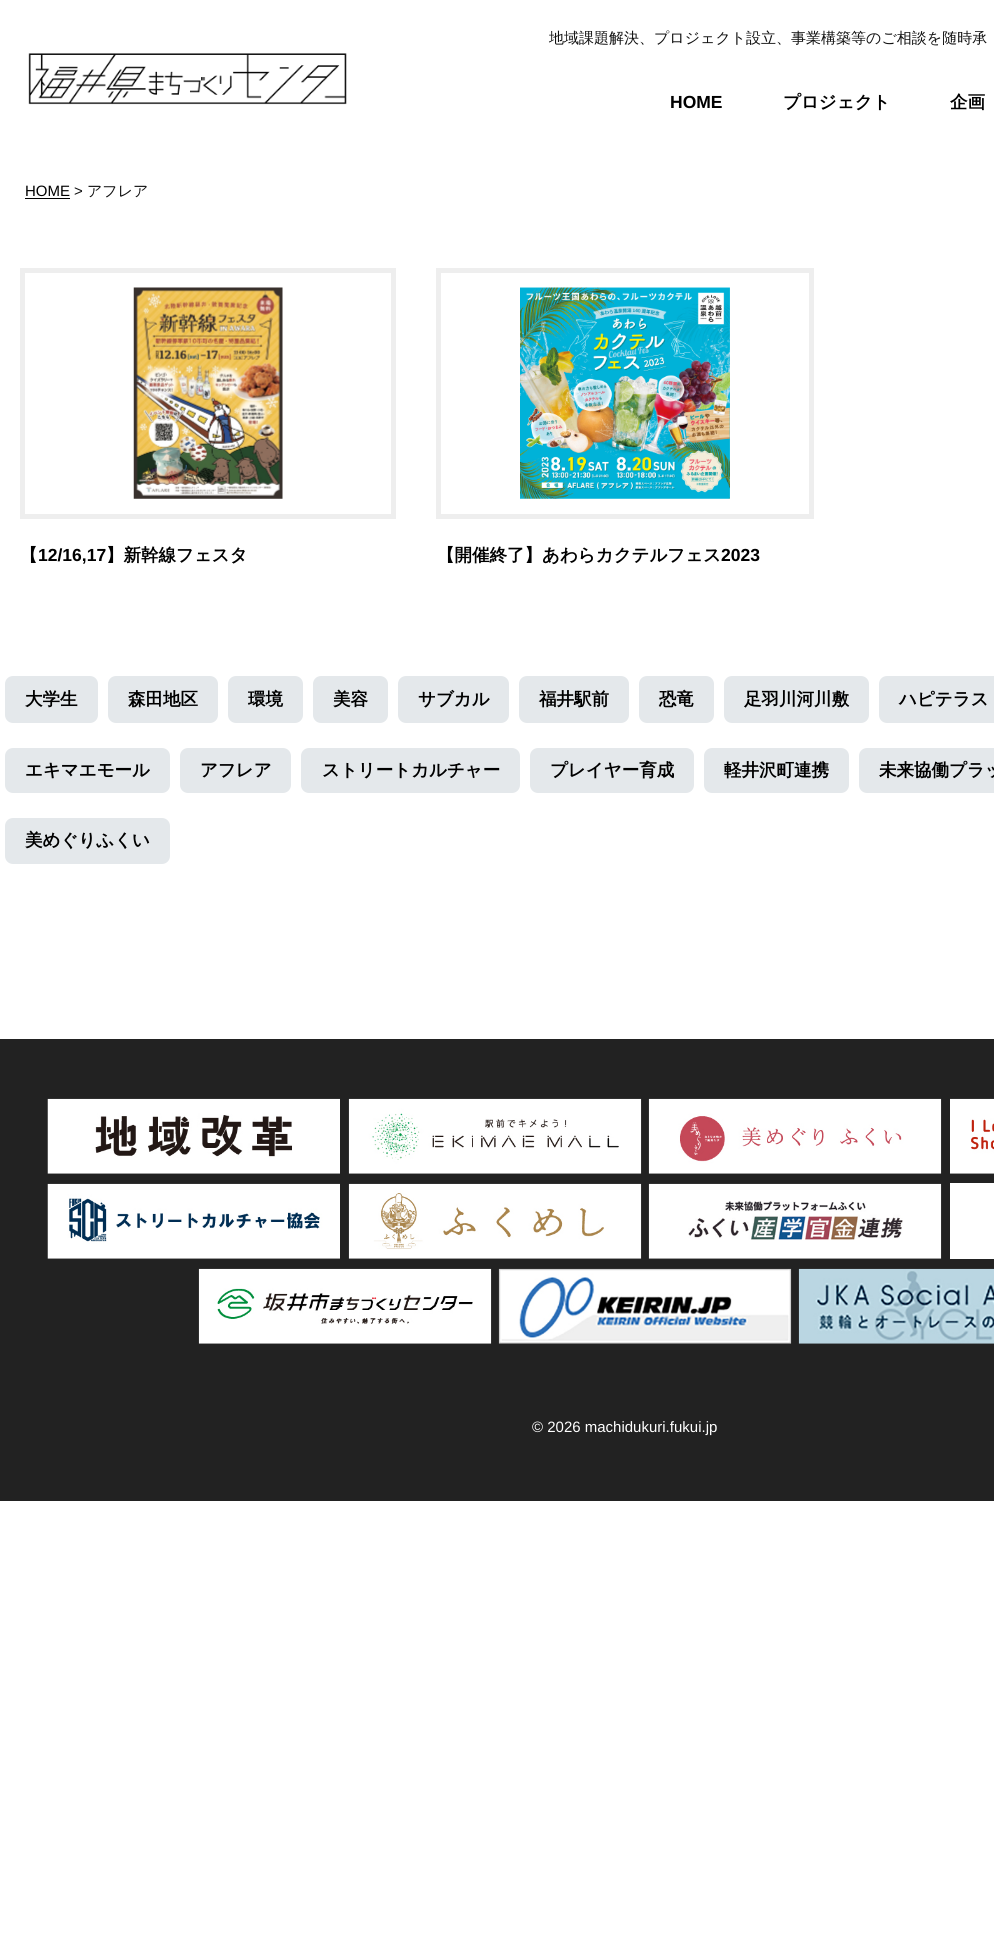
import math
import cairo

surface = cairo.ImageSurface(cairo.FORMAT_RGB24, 994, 1942)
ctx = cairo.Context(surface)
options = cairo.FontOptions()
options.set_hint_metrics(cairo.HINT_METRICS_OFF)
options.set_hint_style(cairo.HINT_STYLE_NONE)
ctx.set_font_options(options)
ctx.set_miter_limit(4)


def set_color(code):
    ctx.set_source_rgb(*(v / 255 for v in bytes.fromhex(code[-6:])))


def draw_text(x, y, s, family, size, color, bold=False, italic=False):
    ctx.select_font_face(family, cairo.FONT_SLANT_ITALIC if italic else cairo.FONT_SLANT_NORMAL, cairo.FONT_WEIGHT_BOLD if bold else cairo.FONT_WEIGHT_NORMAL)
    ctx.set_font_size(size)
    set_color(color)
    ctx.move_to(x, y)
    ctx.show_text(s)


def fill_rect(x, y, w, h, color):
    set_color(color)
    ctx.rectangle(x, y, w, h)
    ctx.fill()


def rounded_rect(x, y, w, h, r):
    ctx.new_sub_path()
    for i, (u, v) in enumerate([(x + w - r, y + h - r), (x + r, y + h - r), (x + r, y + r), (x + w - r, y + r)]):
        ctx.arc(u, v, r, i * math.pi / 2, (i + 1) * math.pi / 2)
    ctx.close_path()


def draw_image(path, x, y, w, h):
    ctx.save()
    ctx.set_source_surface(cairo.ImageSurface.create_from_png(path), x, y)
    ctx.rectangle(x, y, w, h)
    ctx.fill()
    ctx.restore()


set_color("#ffffff")
ctx.paint()
draw_image("assets/img1.png", 28, 53, 319, 52)
draw_text(549, 43, "地域課題解決、プロジェクト設立、事業構築等のご相談を随時承", "WenQuanYi Zen Hei Medium", 15, "#111111")
draw_text(670, 108, "HOME", "Liberation Sans", 17.5, "#000000", bold=True)
draw_text(783, 108, "プロジェクト", "WenQuanYi Zen Hei", 17.5, "#000000", bold=True)
draw_text(950, 108, "企画", "WenQuanYi Zen Hei", 17.5, "#000000", bold=True)
draw_text(25, 196, "HOME", "Liberation Sans", 15, "#000000")
fill_rect(25, 198, 45, 1, "#000000")
draw_text(74, 196, ">", "Liberation Sans", 15, "#111111")
draw_text(87, 196, "アフレア", "WenQuanYi Zen Hei Medium", 15, "#111111")
ctx.rectangle(22.5, 270.5, 371, 246)
set_color("#eeeeee")
ctx.set_line_width(5)
ctx.stroke()
draw_image("assets/img2.png", 133, 287, 150, 212)
draw_text(20, 561, "【", "WenQuanYi Zen Hei", 17.5, "#000000", bold=True)
draw_text(38, 561, "12/16,17", "Liberation Sans", 17.5, "#000000", bold=True)
draw_text(106, 561, "】新幹線フェスタ", "WenQuanYi Zen Hei", 17.5, "#000000", bold=True)
ctx.rectangle(438.5, 270.5, 373, 246)
set_color("#eeeeee")
ctx.stroke()
draw_image("assets/img3.png", 520, 287, 210, 212)
draw_text(437, 561, "【開催終了】あわらカクテルフェス", "WenQuanYi Zen Hei", 17.5, "#000000", bold=True)
draw_text(721, 561, "2023", "Liberation Sans", 17.5, "#000000", bold=True)
set_color("#e4e8eb")
rounded_rect(5, 676, 93, 47, 8)
ctx.fill()
draw_text(25, 705, "大学生", "WenQuanYi Zen Hei", 17.5, "#000000", bold=True)
set_color("#e4e8eb")
rounded_rect(108, 676, 110, 47, 8)
ctx.fill()
draw_text(128, 705, "森田地区", "WenQuanYi Zen Hei", 17.5, "#000000", bold=True)
set_color("#e4e8eb")
rounded_rect(228, 676, 75, 47, 8)
ctx.fill()
draw_text(248, 705, "環境", "WenQuanYi Zen Hei", 17.5, "#000000", bold=True)
set_color("#e4e8eb")
rounded_rect(313, 676, 75, 47, 8)
ctx.fill()
draw_text(333, 705, "美容", "WenQuanYi Zen Hei", 17.5, "#000000", bold=True)
set_color("#e4e8eb")
rounded_rect(398, 676, 111, 47, 8)
ctx.fill()
draw_text(418, 705, "サブカル", "WenQuanYi Zen Hei", 17.5, "#000000", bold=True)
set_color("#e4e8eb")
rounded_rect(519, 676, 110, 47, 8)
ctx.fill()
draw_text(539, 705, "福井駅前", "WenQuanYi Zen Hei", 17.5, "#000000", bold=True)
set_color("#e4e8eb")
rounded_rect(639, 676, 75, 47, 8)
ctx.fill()
draw_text(659, 705, "恐竜", "WenQuanYi Zen Hei", 17.5, "#000000", bold=True)
set_color("#e4e8eb")
rounded_rect(724, 676, 145, 47, 8)
ctx.fill()
draw_text(744, 705, "足羽川河川敷", "WenQuanYi Zen Hei", 17.5, "#000000", bold=True)
set_color("#e4e8eb")
rounded_rect(879, 676, 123, 47, 8)
ctx.fill()
draw_text(899, 705, "ハピテラス", "WenQuanYi Zen Hei", 17.5, "#000000", bold=True)
set_color("#e4e8eb")
rounded_rect(5, 748, 165, 45, 8)
ctx.fill()
draw_text(25, 776, "エキマエモール", "WenQuanYi Zen Hei", 17.5, "#000000", bold=True)
set_color("#e4e8eb")
rounded_rect(180, 748, 111, 45, 8)
ctx.fill()
draw_text(200, 776, "アフレア", "WenQuanYi Zen Hei", 17.5, "#000000", bold=True)
set_color("#e4e8eb")
rounded_rect(301, 748, 219, 45, 8)
ctx.fill()
draw_text(322, 776, "ストリートカルチャー", "WenQuanYi Zen Hei", 17.5, "#000000", bold=True)
set_color("#e4e8eb")
rounded_rect(530, 748, 164, 45, 8)
ctx.fill()
draw_text(550, 776, "プレイヤー育成", "WenQuanYi Zen Hei", 17.5, "#000000", bold=True)
set_color("#e4e8eb")
rounded_rect(704, 748, 145, 45, 8)
ctx.fill()
draw_text(724, 776, "軽井沢町連携", "WenQuanYi Zen Hei", 17.5, "#000000", bold=True)
set_color("#e4e8eb")
rounded_rect(859, 748, 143, 45, 8)
ctx.fill()
draw_text(879, 776, "未来協働プラッ", "WenQuanYi Zen Hei", 17.5, "#000000", bold=True)
set_color("#e4e8eb")
rounded_rect(5, 818, 165, 46, 8)
ctx.fill()
draw_text(25, 846, "美めぐりふくい", "WenQuanYi Zen Hei", 17.5, "#000000", bold=True)
fill_rect(0, 1039, 994, 462, "#222222")
draw_image("assets/img4.png", 47, 1098, 293, 76)
draw_image("assets/img5.png", 348, 1098, 294, 76)
draw_image("assets/img6.png", 648, 1098, 294, 76)
draw_image("assets/img7.png", 950, 1098, 44, 76)
draw_image("assets/img8.png", 47, 1183, 293, 76)
draw_image("assets/img9.png", 348, 1183, 294, 76)
draw_image("assets/img10.png", 648, 1183, 294, 76)
fill_rect(950, 1183, 44, 76, "#ffffff")
draw_image("assets/img11.png", 198, 1268, 294, 76)
draw_image("assets/img12.png", 498, 1268, 294, 76)
draw_image("assets/img13.png", 798, 1268, 196, 76)
draw_text(532, 1432, "© 2026 machidukuri.fukui.jp", "Liberation Sans", 15, "#ffffff")
surface.write_to_png("output.png")
